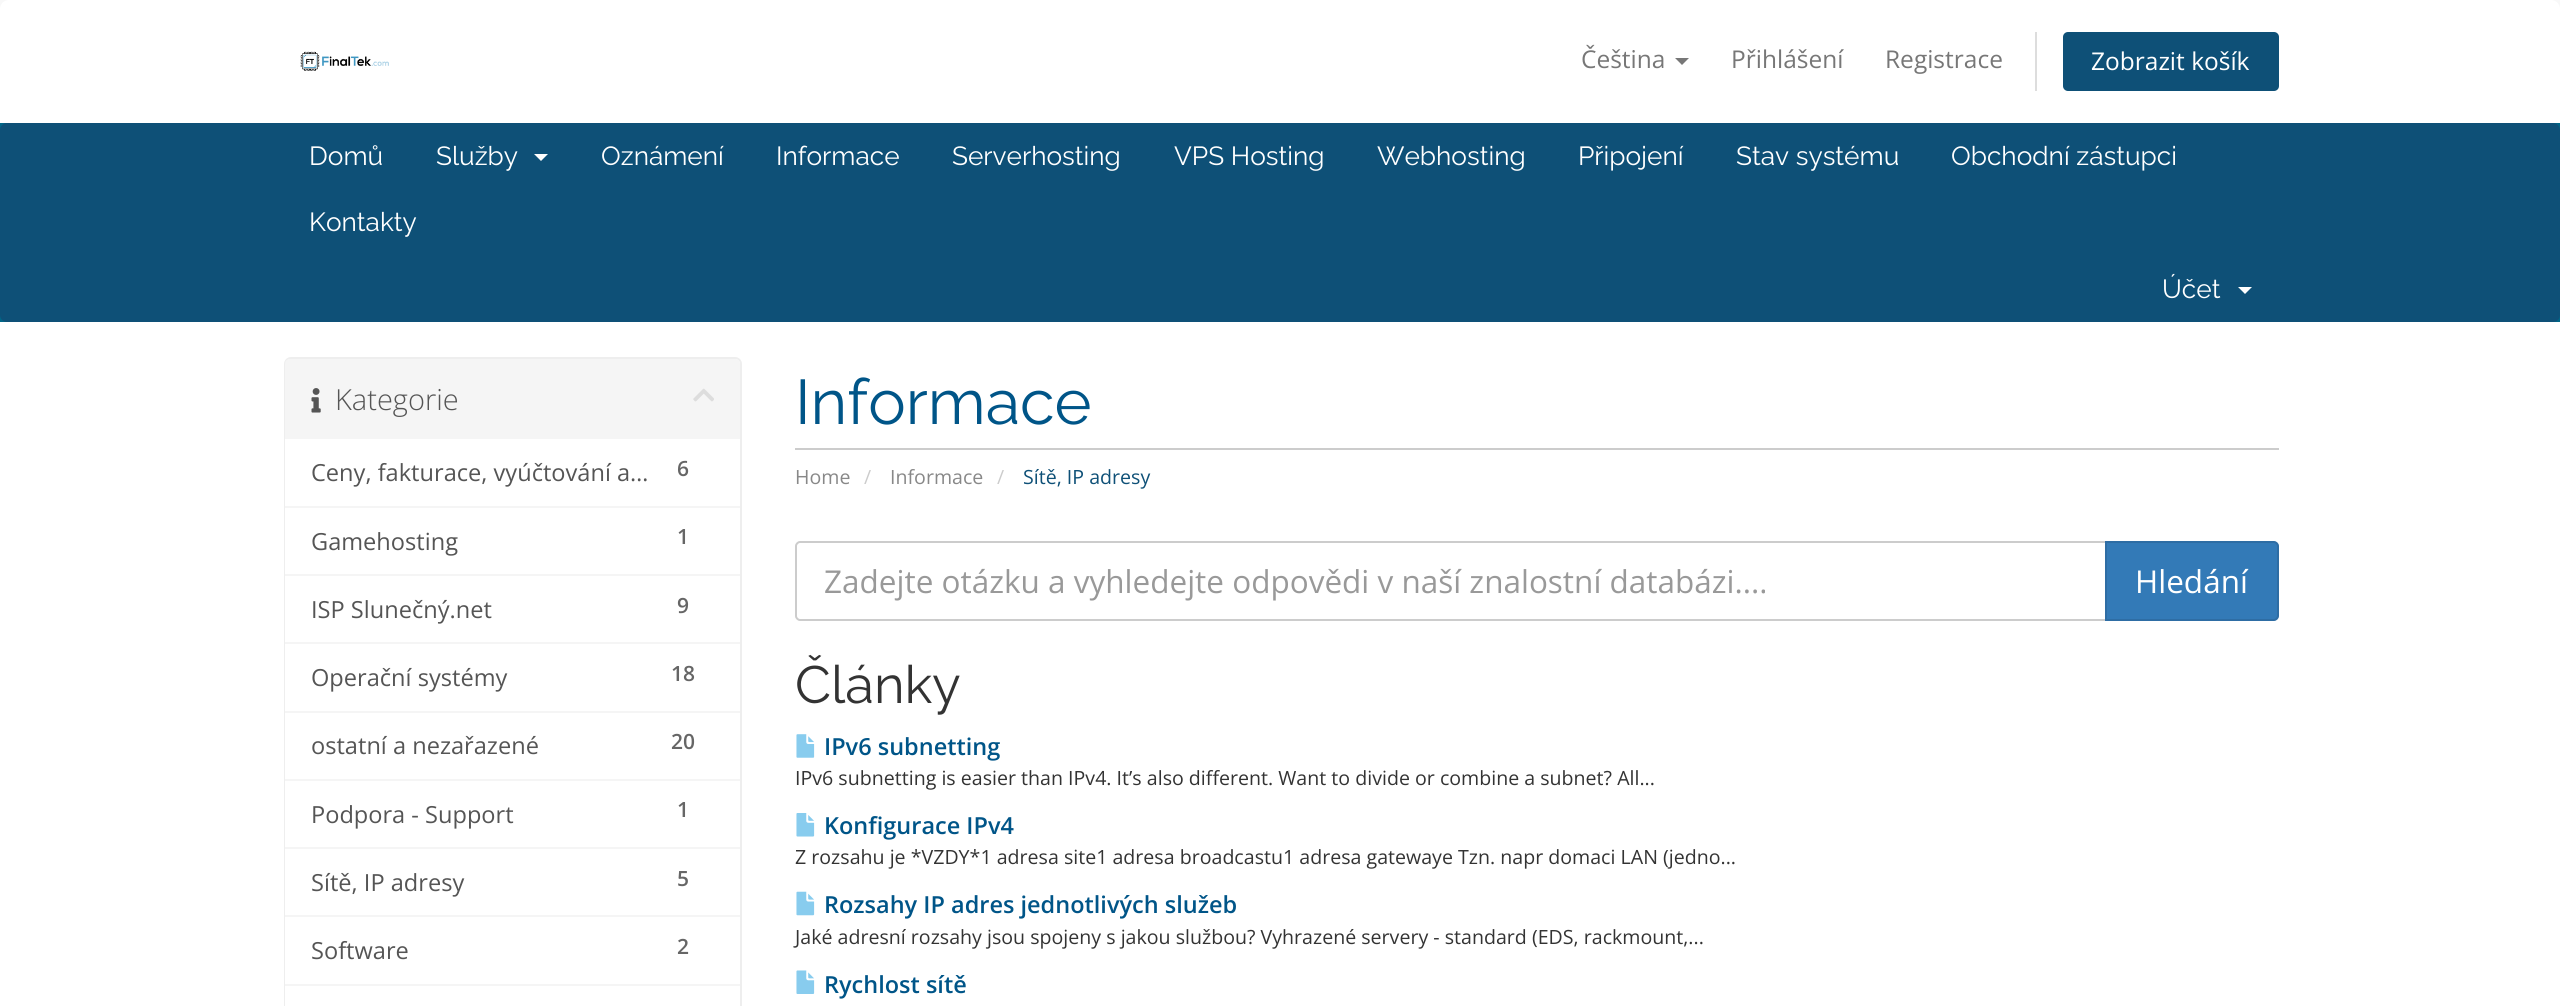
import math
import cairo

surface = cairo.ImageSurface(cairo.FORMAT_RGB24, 2560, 1006)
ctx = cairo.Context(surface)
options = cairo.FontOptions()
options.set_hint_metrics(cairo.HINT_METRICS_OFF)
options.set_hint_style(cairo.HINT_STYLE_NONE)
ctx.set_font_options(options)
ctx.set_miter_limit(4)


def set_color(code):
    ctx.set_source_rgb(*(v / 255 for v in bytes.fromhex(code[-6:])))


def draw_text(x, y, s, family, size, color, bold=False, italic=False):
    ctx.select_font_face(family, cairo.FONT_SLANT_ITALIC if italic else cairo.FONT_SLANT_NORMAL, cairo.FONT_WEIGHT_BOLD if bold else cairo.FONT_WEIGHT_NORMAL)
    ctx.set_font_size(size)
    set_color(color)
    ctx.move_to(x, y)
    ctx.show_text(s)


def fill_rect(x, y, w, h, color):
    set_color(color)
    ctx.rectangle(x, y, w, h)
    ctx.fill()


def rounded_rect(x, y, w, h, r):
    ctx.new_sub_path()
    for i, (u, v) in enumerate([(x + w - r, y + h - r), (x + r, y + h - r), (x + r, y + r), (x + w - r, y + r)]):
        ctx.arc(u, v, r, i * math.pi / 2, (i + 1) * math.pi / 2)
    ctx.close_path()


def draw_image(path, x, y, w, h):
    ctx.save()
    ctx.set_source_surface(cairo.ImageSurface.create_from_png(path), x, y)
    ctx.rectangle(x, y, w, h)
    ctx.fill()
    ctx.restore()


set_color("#f8f8f8")
ctx.paint()
set_color("#ffffff")
ctx.new_path()
ctx.move_to(9, 0)
ctx.line_to(2551, 0)
ctx.curve_to(2556, 0, 2560, 4, 2560, 9)
ctx.line_to(2560, 123)
ctx.line_to(0, 123)
ctx.line_to(0, 9)
ctx.curve_to(0, 4, 4, 0, 9, 0)
ctx.close_path()
ctx.fill()
draw_image("assets/img1.png", 300, 51, 89, 20)
draw_text(1581, 68, "Čeština", "Open Sans", 24.5, "#777777")
ctx.new_path()
ctx.move_to(1675, 58)
ctx.line_to(1689, 58)
ctx.line_to(1682, 65)
ctx.close_path()
ctx.fill()
draw_text(1731, 68, "Přihlášení", "Open Sans", 24.5, "#777777")
draw_text(1885, 68, "Registrace", "Open Sans", 24.5, "#777777")
fill_rect(2035, 32, 2, 59, "#dddddd")
set_color("#0e5077")
rounded_rect(2063, 32, 216, 59, 5)
ctx.fill()
draw_text(2091, 70, "Zobrazit košík", "Open Sans", 24.5, "#ffffff")
fill_rect(0, 123, 2560, 199, "#006687")
set_color("#0e5077")
rounded_rect(0, 123, 2560, 199, 7)
ctx.fill()
draw_text(309, 165, "Domů", "Raleway", 26.25, "#ffffff")
draw_text(436, 165, "Služby", "Raleway", 26.25, "#ffffff")
ctx.new_path()
ctx.move_to(534, 154)
ctx.line_to(548, 154)
ctx.line_to(541, 161)
ctx.close_path()
ctx.fill()
draw_text(601, 165, "Oznámení", "Raleway", 26.25, "#ffffff")
draw_text(776, 165, "Informace", "Raleway", 26.25, "#ffffff")
draw_text(952, 165, "Serverhosting", "Raleway", 26.25, "#ffffff")
draw_text(1174, 165, "VPS Hosting", "Raleway", 26.25, "#ffffff")
draw_text(1377, 165, "Webhosting", "Raleway", 26.25, "#ffffff")
draw_text(1578, 165, "Připojení", "Raleway", 26.25, "#ffffff")
draw_text(1736, 165, "Stav systému", "Raleway", 26.25, "#ffffff")
draw_text(1951, 165, "Obchodní zástupci", "Raleway", 26.25, "#ffffff")
draw_text(309, 231, "Kontakty", "Raleway", 26.25, "#ffffff")
draw_text(2162, 298, "Účet", "Raleway", 26.25, "#ffffff")
ctx.new_path()
ctx.move_to(2238, 287)
ctx.line_to(2252, 287)
ctx.line_to(2245, 294)
ctx.close_path()
ctx.fill()
fill_rect(0, 322, 2560, 684, "#ffffff")
rounded_rect(285, 358, 456, 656, 6)
set_color("#eeeeee")
ctx.stroke()
set_color("#f5f5f5")
ctx.new_path()
ctx.move_to(290, 359)
ctx.line_to(735, 359)
ctx.curve_to(738, 359, 740, 361, 740, 364)
ctx.line_to(740, 439)
ctx.line_to(285, 439)
ctx.line_to(285, 364)
ctx.curve_to(285, 361, 287, 359, 290, 359)
ctx.close_path()
ctx.fill()
draw_image("assets/img2.png", 311, 388, 10, 25)
draw_text(335, 410, "Kategorie", "Open Sans Light", 29, "#555555")
draw_image("assets/img3.png", 693, 388, 21, 14)
fill_rect(285, 439, 1, 67, "#ffffff")
fill_rect(285, 506, 455, 2, "#f5f5f5")
draw_text(311, 481, "Ceny, fakturace, vyúčtování a…", "Open Sans", 23.6, "#555555")
draw_text(677, 476, "6", "Open Sans SemiBold", 21, "#666666")
fill_rect(285, 508, 1, 66, "#ffffff")
fill_rect(285, 574, 455, 2, "#f5f5f5")
draw_text(311, 550, "Gamehosting", "Open Sans", 23.6, "#555555")
draw_text(677, 544, "1", "Open Sans SemiBold", 21, "#666666")
fill_rect(285, 576, 1, 66, "#ffffff")
fill_rect(285, 642, 455, 2, "#f5f5f5")
draw_text(311, 618, "ISP Slunečný.net", "Open Sans", 23.6, "#555555")
draw_text(677, 613, "9", "Open Sans SemiBold", 21, "#666666")
fill_rect(285, 644, 1, 67, "#ffffff")
draw_text(311, 686, "Operační systémy", "Open Sans", 23.6, "#555555")
draw_text(671, 681, "18", "Open Sans SemiBold", 21, "#666666")
fill_rect(285, 713, 1, 66, "#ffffff")
fill_rect(285, 711, 455, 2, "#f5f5f5")
fill_rect(285, 779, 455, 2, "#f5f5f5")
draw_text(311, 754, "ostatní a nezařazené", "Open Sans", 23.6, "#555555")
draw_text(671, 749, "20", "Open Sans SemiBold", 21, "#666666")
fill_rect(285, 781, 1, 66, "#ffffff")
fill_rect(285, 847, 455, 2, "#f5f5f5")
draw_text(311, 823, "Podpora - Support", "Open Sans", 23.6, "#555555")
draw_text(677, 817, "1", "Open Sans SemiBold", 21, "#666666")
fill_rect(285, 849, 1, 66, "#ffffff")
fill_rect(285, 915, 455, 2, "#f5f5f5")
ctx.save()
ctx.rectangle(312, 861, 339, 42)
ctx.clip()
draw_text(311, 891, "Sítě, IP adresy", "Open Sans", 23.6, "#555555")
ctx.restore()
draw_text(677, 886, "5", "Open Sans SemiBold", 21, "#666666")
fill_rect(285, 917, 1, 67, "#ffffff")
ctx.save()
ctx.rectangle(312, 929, 339, 42)
ctx.clip()
draw_text(311, 959, "Software", "Open Sans", 23.6, "#555555")
ctx.restore()
draw_text(677, 954, "2", "Open Sans SemiBold", 21, "#666666")
fill_rect(285, 986, 1, 20, "#ffffff")
fill_rect(285, 984, 455, 2, "#f5f5f5")
fill_rect(795, 448, 1484, 2, "#cccccc")
draw_text(795, 424, "Informace", "Raleway", 63, "#005588")
draw_text(795, 484, "Home", "Open Sans", 19.6, "#888888")
draw_text(864, 484, "/", "Open Sans", 19.6, "#cccccc")
draw_text(890, 484, "Informace", "Open Sans", 19.6, "#888888")
draw_text(997, 484, "/", "Open Sans", 19.6, "#cccccc")
draw_text(1023, 484, "Sítě, IP adresy", "Open Sans", 19.6, "#0e5077")
ctx.new_path()
ctx.move_to(800, 542)
ctx.line_to(2106, 542)
ctx.line_to(2106, 620)
ctx.line_to(800, 620)
ctx.curve_to(798, 620, 796, 618, 796, 616)
ctx.line_to(796, 546)
ctx.curve_to(796, 544, 798, 542, 800, 542)
ctx.close_path()
set_color("#cccccc")
ctx.stroke()
draw_text(824, 593, "Zadejte otázku a vyhledejte odpovědi v naší znalostní databázi....", "Open Sans", 31.5, "#999999")
set_color("#337ab7")
ctx.new_path()
ctx.move_to(2106, 542)
ctx.line_to(2274, 542)
ctx.curve_to(2276, 542, 2278, 544, 2278, 546)
ctx.line_to(2278, 616)
ctx.curve_to(2278, 618, 2276, 620, 2274, 620)
ctx.line_to(2106, 620)
ctx.close_path()
ctx.fill_preserve()
set_color("#2e6da4")
ctx.stroke()
draw_text(2135, 593, "Hledání", "Open Sans", 31.5, "#ffffff")
draw_text(795, 703, "Články", "Raleway", 52.5, "#333333")
draw_image("assets/img4.png", 796, 734, 19, 24)
draw_text(824, 755, "IPv6 subnetting", "Open Sans SemiBold", 23.5, "#005588")
draw_text(795, 785, "IPv6 subnetting is easier than IPv4. It’s also different. Want to divide or combine a subnet? All...", "Open Sans", 19.6, "#333333")
draw_image("assets/img5.png", 796, 813, 19, 24)
draw_text(824, 834, "Konfigurace IPv4", "Open Sans SemiBold", 23.5, "#005588")
draw_text(795, 864, "Z rozsahu je *VZDY*1 adresa site1 adresa broadcastu1 adresa gatewaye Tzn. napr domaci LAN (jedno...", "Open Sans", 19.6, "#333333")
draw_image("assets/img6.png", 796, 891, 19, 25)
draw_text(824, 913, "Rozsahy IP adres jednotlivých služeb", "Open Sans SemiBold", 23.5, "#005588")
draw_text(795, 944, "Jaké adresní rozsahy jsou spojeny s jakou službou? Vyhrazené servery - standard (EDS, rackmount,...", "Open Sans", 19.6, "#333333")
draw_image("assets/img7.png", 796, 970, 19, 24)
draw_text(824, 993, "Rychlost sítě", "Open Sans SemiBold", 23.5, "#005588")
surface.write_to_png("output.png")
